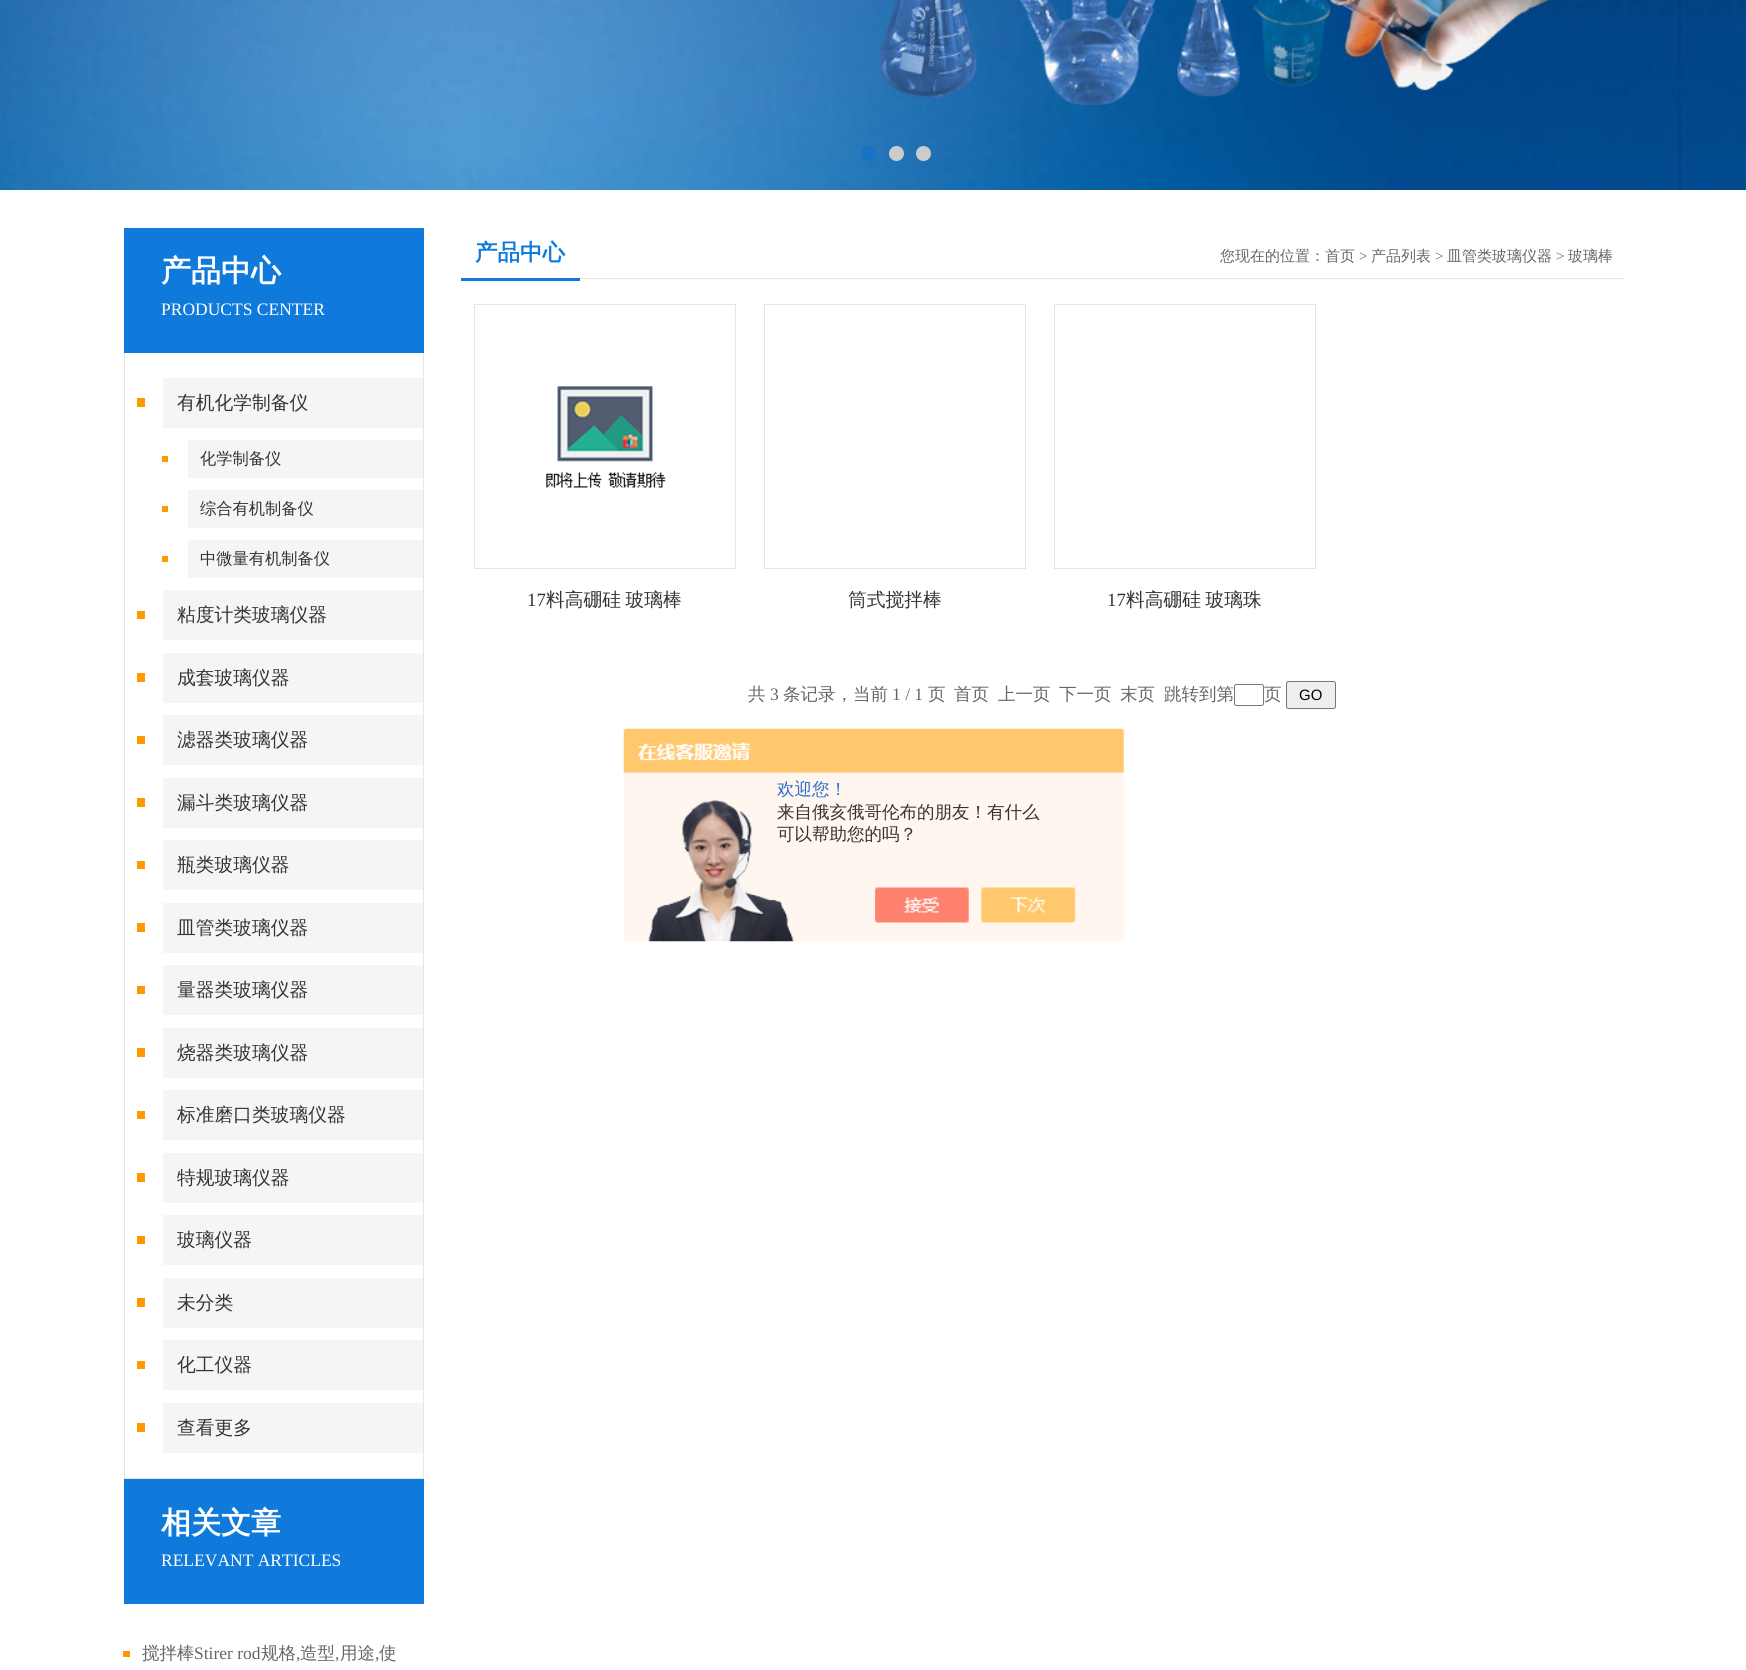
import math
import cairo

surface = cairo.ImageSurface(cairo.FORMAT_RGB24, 1746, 1670)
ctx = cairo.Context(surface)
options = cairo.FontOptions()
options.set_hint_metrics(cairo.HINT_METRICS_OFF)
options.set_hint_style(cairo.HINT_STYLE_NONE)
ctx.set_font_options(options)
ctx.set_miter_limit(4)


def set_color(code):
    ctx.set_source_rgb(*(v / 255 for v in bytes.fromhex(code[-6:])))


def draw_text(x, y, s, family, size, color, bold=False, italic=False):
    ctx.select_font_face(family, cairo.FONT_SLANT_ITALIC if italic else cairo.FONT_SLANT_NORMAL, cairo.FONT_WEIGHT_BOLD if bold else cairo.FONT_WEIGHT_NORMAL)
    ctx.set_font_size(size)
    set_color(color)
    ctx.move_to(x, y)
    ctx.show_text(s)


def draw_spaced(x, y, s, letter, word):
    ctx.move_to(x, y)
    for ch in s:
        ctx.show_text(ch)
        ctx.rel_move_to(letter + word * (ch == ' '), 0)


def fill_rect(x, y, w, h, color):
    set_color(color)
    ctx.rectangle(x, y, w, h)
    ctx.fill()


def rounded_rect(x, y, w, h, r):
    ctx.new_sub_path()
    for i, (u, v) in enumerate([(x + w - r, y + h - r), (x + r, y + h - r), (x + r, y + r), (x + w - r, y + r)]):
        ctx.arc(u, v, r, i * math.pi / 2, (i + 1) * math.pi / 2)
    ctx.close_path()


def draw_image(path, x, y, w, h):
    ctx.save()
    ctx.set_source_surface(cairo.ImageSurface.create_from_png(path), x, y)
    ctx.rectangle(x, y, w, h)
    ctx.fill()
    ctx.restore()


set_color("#ffffff")
ctx.paint()
draw_image("assets/img1.png", 0, 0, 1746, 190)
set_color("#1773c6")
ctx.arc(868.5, 153.5, 7.5, 0, 2 * math.pi)
ctx.fill()
set_color("#cccccc")
ctx.arc(896.5, 153.5, 7.5, 0, 2 * math.pi)
ctx.fill()
ctx.arc(923.5, 153.5, 7.5, 0, 2 * math.pi)
ctx.fill()
fill_rect(124, 228, 300, 125, "#0f7adb")
draw_text(161, 281, "产品中心", "WenQuanYi Zen Hei", 30, "#ffffff", bold=True)
draw_text(161, 315, "PRODUCTS CENTER", "Liberation Serif", 17.5, "#ffffff")
fill_rect(423, 353, 1, 1126, "#e5e5e5")
fill_rect(124, 1478, 300, 1, "#e5e5e5")
fill_rect(124, 353, 1, 1126, "#e5e5e5")
fill_rect(137, 398, 8, 9, "#ff9900")
fill_rect(163, 378, 260, 50, "#f5f5f5")
draw_text(177, 409, "有机化学制备仪", "WenQuanYi Zen Hei Medium", 18.75, "#333333")
fill_rect(162, 456, 6, 6, "#ff9900")
fill_rect(188, 440, 235, 38, "#f5f5f5")
draw_text(200, 464, "化学制备仪", "WenQuanYi Zen Hei Medium", 16.25, "#333333")
fill_rect(162, 506, 6, 6, "#ff9900")
fill_rect(188, 490, 235, 38, "#f5f5f5")
draw_text(200, 514, "综合有机制备仪", "WenQuanYi Zen Hei Medium", 16.25, "#333333")
fill_rect(162, 556, 6, 6, "#ff9900")
fill_rect(188, 540, 235, 38, "#f5f5f5")
draw_text(200, 564, "中微量有机制备仪", "WenQuanYi Zen Hei Medium", 16.25, "#333333")
fill_rect(137, 611, 8, 8, "#ff9900")
fill_rect(163, 590, 260, 50, "#f5f5f5")
draw_text(177, 621, "粘度计类玻璃仪器", "WenQuanYi Zen Hei Medium", 18.75, "#333333")
fill_rect(137, 673, 8, 9, "#ff9900")
fill_rect(163, 653, 260, 50, "#f5f5f5")
draw_text(177, 684, "成套玻璃仪器", "WenQuanYi Zen Hei Medium", 18.75, "#333333")
fill_rect(137, 736, 8, 8, "#ff9900")
fill_rect(163, 715, 260, 50, "#f5f5f5")
draw_text(177, 746, "滤器类玻璃仪器", "WenQuanYi Zen Hei Medium", 18.75, "#333333")
fill_rect(137, 798, 8, 9, "#ff9900")
fill_rect(163, 778, 260, 50, "#f5f5f5")
draw_text(177, 809, "漏斗类玻璃仪器", "WenQuanYi Zen Hei Medium", 18.75, "#333333")
fill_rect(137, 861, 8, 8, "#ff9900")
fill_rect(163, 840, 260, 50, "#f5f5f5")
draw_text(177, 871, "瓶类玻璃仪器", "WenQuanYi Zen Hei Medium", 18.75, "#333333")
fill_rect(137, 923, 8, 9, "#ff9900")
fill_rect(163, 903, 260, 50, "#f5f5f5")
draw_text(177, 934, "皿管类玻璃仪器", "WenQuanYi Zen Hei Medium", 18.75, "#333333")
fill_rect(137, 986, 8, 8, "#ff9900")
fill_rect(163, 965, 260, 50, "#f5f5f5")
draw_text(177, 996, "量器类玻璃仪器", "WenQuanYi Zen Hei Medium", 18.75, "#333333")
fill_rect(137, 1048, 8, 9, "#ff9900")
fill_rect(163, 1028, 260, 50, "#f5f5f5")
draw_text(177, 1059, "烧器类玻璃仪器", "WenQuanYi Zen Hei Medium", 18.75, "#333333")
fill_rect(137, 1111, 8, 8, "#ff9900")
fill_rect(163, 1090, 260, 50, "#f5f5f5")
draw_text(177, 1121, "标准磨口类玻璃仪器", "WenQuanYi Zen Hei Medium", 18.75, "#333333")
fill_rect(137, 1173, 8, 9, "#ff9900")
fill_rect(163, 1153, 260, 50, "#f5f5f5")
draw_text(177, 1184, "特规玻璃仪器", "WenQuanYi Zen Hei Medium", 18.75, "#333333")
fill_rect(137, 1236, 8, 8, "#ff9900")
fill_rect(163, 1215, 260, 50, "#f5f5f5")
draw_text(177, 1246, "玻璃仪器", "WenQuanYi Zen Hei Medium", 18.75, "#333333")
fill_rect(137, 1298, 8, 9, "#ff9900")
fill_rect(163, 1278, 260, 50, "#f5f5f5")
draw_text(177, 1309, "未分类", "WenQuanYi Zen Hei Medium", 18.75, "#333333")
fill_rect(137, 1361, 8, 8, "#ff9900")
fill_rect(163, 1340, 260, 50, "#f5f5f5")
draw_text(177, 1371, "化工仪器", "WenQuanYi Zen Hei Medium", 18.75, "#333333")
fill_rect(137, 1423, 8, 9, "#ff9900")
fill_rect(163, 1403, 260, 50, "#f5f5f5")
draw_text(177, 1434, "查看更多", "WenQuanYi Zen Hei Medium", 18.75, "#333333")
fill_rect(124, 1479, 300, 125, "#0f7adb")
draw_text(161, 1533, "相关文章", "WenQuanYi Zen Hei", 30, "#ffffff", bold=True)
draw_text(161, 1566, "RELEVANT ARTICLES", "Liberation Serif", 17.5, "#ffffff")
fill_rect(123, 1651, 7, 6, "#ff9900")
draw_text(142, 1659, "搅拌棒", "WenQuanYi Zen Hei Medium", 17.5, "#666666")
draw_text(194, 1659, "Stirer rod", "Liberation Serif", 17.5, "#666666")
draw_text(261, 1659, "规格", "WenQuanYi Zen Hei Medium", 17.5, "#666666")
draw_text(296, 1659, ",", "Liberation Serif", 17.5, "#666666")
draw_text(300, 1659, "造型", "WenQuanYi Zen Hei Medium", 17.5, "#666666")
draw_text(335, 1659, ",", "Liberation Serif", 17.5, "#666666")
draw_text(340, 1659, "用途", "WenQuanYi Zen Hei Medium", 17.5, "#666666")
draw_text(375, 1659, ",", "Liberation Serif", 17.5, "#666666")
draw_text(379, 1659, "使", "WenQuanYi Zen Hei Medium", 17.5, "#666666")
fill_rect(580, 278, 1044, 1, "#e5e5e5")
fill_rect(461, 278, 119, 3, "#0f7adb")
draw_text(475, 260, "产品中心", "WenQuanYi Zen Hei", 22.5, "#0f7adb", bold=True)
draw_text(1220, 261, "您现在的位置：首页", "WenQuanYi Zen Hei Medium", 15, "#666666")
draw_text(1359, 261, ">", "Liberation Serif", 15, "#666666")
draw_text(1371, 261, "产品列表", "WenQuanYi Zen Hei Medium", 15, "#666666")
draw_text(1435, 261, ">", "Liberation Serif", 15, "#666666")
draw_text(1447, 261, "皿管类玻璃仪器", "WenQuanYi Zen Hei Medium", 15, "#666666")
draw_text(1556, 261, ">", "Liberation Serif", 15, "#666666")
draw_text(1568, 261, "玻璃棒", "WenQuanYi Zen Hei Medium", 15, "#666666")
ctx.rectangle(474.5, 304.5, 261, 264)
set_color("#e5e5e5")
ctx.set_line_width(1)
ctx.stroke()
draw_image("assets/img2.png", 546, 386, 120, 102)
draw_text(527, 606, "17", "Liberation Serif", 18.75, "#333333")
ctx.select_font_face("WenQuanYi Zen Hei Medium")
draw_spaced(546, 606, "料高硼硅 玻璃棒", 0, -1)
ctx.rectangle(764.5, 304.5, 261, 264)
set_color("#e5e5e5")
ctx.stroke()
draw_text(848, 606, "筒式搅拌棒", "WenQuanYi Zen Hei Medium", 18.75, "#333333")
ctx.rectangle(1054.5, 304.5, 261, 264)
set_color("#e5e5e5")
ctx.stroke()
draw_text(1107, 606, "17", "Liberation Serif", 18.75, "#333333")
ctx.select_font_face("WenQuanYi Zen Hei Medium")
draw_spaced(1126, 606, "料高硼硅 玻璃珠", 0, -1)
draw_text(748, 700, "共", "WenQuanYi Zen Hei Medium", 17.5, "#666666")
draw_text(770, 700, "3", "Liberation Serif", 17.5, "#666666")
draw_text(783, 700, "条记录，当前", "WenQuanYi Zen Hei Medium", 17.5, "#666666")
draw_text(892, 700, "1 / 1", "Liberation Serif", 17.5, "#666666")
draw_text(928, 700, "页", "WenQuanYi Zen Hei Medium", 17.5, "#666666")
draw_text(954, 700, "首页", "WenQuanYi Zen Hei Medium", 17.5, "#666666")
draw_text(998, 700, "上一页", "WenQuanYi Zen Hei Medium", 17.5, "#666666")
draw_text(1059, 700, "下一页", "WenQuanYi Zen Hei Medium", 17.5, "#666666")
draw_text(1120, 700, "末页", "WenQuanYi Zen Hei Medium", 17.5, "#666666")
draw_text(1164, 700, "跳转到第", "WenQuanYi Zen Hei Medium", 17.5, "#666666")
rounded_rect(1234.5, 684.5, 29, 21, 2)
set_color("#767676")
ctx.stroke()
draw_text(1264, 700, "页", "WenQuanYi Zen Hei Medium", 17.5, "#666666")
set_color("#efefef")
rounded_rect(1286.5, 681.5, 49, 27, 2)
ctx.fill_preserve()
set_color("#767676")
ctx.stroke()
draw_text(1299, 700, "GO", "Liberation Sans", 15, "#000000")
draw_image("assets/img3.png", 623, 728, 501, 214)
draw_text(777, 795, "欢迎您！", "WenQuanYi Zen Hei Medium", 17.5, "#2e6ec6")
draw_text(777, 818, "来自俄亥俄哥伦布的朋友！有什么", "WenQuanYi Zen Hei Medium", 17.5, "#333333")
draw_text(777, 840, "可以帮助您的吗？", "WenQuanYi Zen Hei Medium", 17.5, "#333333")
surface.write_to_png("output.png")
